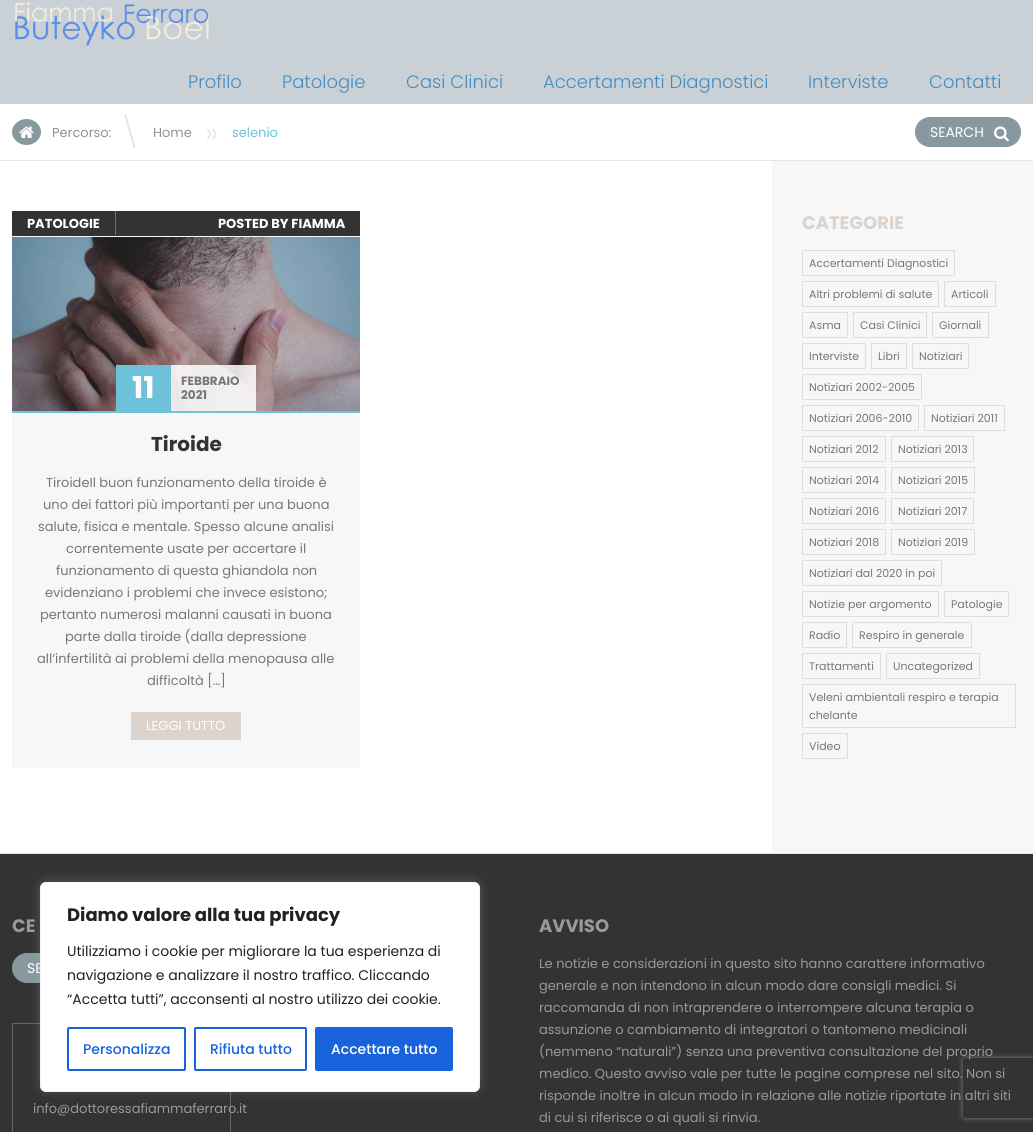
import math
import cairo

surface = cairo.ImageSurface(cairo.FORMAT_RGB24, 1033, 1132)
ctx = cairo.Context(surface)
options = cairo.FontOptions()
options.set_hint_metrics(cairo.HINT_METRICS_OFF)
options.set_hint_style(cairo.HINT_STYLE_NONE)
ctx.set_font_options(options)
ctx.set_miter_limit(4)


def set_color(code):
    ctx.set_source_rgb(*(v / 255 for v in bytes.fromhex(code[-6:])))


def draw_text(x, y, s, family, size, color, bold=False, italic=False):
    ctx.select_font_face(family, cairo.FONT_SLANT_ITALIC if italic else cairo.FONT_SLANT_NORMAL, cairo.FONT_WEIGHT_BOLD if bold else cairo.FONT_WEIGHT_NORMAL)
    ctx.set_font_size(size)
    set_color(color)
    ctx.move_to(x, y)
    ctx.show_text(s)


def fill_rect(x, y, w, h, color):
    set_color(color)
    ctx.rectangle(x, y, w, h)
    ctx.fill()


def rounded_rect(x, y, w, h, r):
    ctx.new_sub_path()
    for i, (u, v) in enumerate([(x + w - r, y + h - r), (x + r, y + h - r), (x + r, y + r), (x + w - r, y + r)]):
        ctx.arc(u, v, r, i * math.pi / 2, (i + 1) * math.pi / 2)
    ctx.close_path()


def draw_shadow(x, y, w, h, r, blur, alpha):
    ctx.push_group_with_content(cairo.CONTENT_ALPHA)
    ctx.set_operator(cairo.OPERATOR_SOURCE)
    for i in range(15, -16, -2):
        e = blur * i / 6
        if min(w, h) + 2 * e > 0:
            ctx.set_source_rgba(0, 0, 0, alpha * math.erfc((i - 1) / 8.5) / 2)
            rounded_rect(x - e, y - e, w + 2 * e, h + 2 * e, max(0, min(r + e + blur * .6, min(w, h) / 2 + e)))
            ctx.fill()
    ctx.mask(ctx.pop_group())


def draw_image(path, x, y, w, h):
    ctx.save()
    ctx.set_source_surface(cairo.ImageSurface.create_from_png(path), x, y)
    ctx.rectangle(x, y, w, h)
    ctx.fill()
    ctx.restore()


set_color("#ffffff")
ctx.paint()
fill_rect(0, 0, 1033, 104, "#c9d1d6")
draw_image("assets/img1.png", 15, 2, 194, 44)
draw_text(188, 88, "Profilo", "Poppins Light", 18, "#448cc2")
draw_text(282, 88, "Patologie", "Poppins Light", 18, "#448cc2")
draw_text(406, 88, "Casi Clinici", "Poppins Light", 18, "#448cc2")
draw_text(543, 88, "Accertamenti Diagnostici", "Poppins Light", 18, "#448cc2")
draw_text(808, 88, "Interviste", "Poppins Light", 18, "#448cc2")
draw_text(929, 88, "Contatti", "Poppins Light", 18, "#448cc2")
fill_rect(0, 160, 1033, 1, "#e6e6e6")
set_color("#87999e")
ctx.new_path()
ctx.move_to(26.5, 119)
ctx.curve_to(34.5, 119, 41, 125, 41, 132)
ctx.curve_to(41, 139, 34.5, 145, 26.5, 145)
ctx.curve_to(18.5, 145, 12, 139, 12, 132)
ctx.curve_to(12, 125, 18.5, 119, 26.5, 119)
ctx.close_path()
ctx.fill()
draw_image("assets/img2.png", 19, 126, 15, 12)
draw_text(52, 137, "Percorso:", "Poppins", 13, "#919191")
draw_text(121, 143, "\\", "Poppins Light", 30, "#e6e6e6")
draw_text(153, 137, "Home", "Poppins", 13, "#919191")
draw_text(205, 143, "»", "Poppins Light", 30, "#e6e6e6")
draw_text(232, 137, "selenio", "Poppins", 13, "#6dc1d8")
set_color("#87999e")
rounded_rect(915, 117, 106, 30, 15)
ctx.fill()
draw_text(930, 137, "SEARCH", "Poppins", 14, "#ffffff")
draw_image("assets/img3.png", 994, 126, 15, 16)
fill_rect(0, 853, 1033, 1, "#e6e6e6")
fill_rect(12, 236, 348, 532, "#f7f7f7")
fill_rect(12, 211, 348, 25, "#333333")
fill_rect(115, 211, 1, 24, "#707070")
draw_text(27, 228, "PATOLOGIE", "Poppins", 13, "#ffffff", bold=True)
draw_text(218, 228, "POSTED BY FIAMMA", "Poppins", 13, "#ffffff", bold=True)
fill_rect(12, 411, 348, 2, "#6dc1d8")
draw_image("assets/img4.png", 12, 237, 348, 174)
ctx.set_source_rgba(1, 1, 1, 0.85)
ctx.rectangle(171, 365, 85, 46)
ctx.fill()
fill_rect(116, 365, 55, 46, "#6dc1d8")
draw_text(132, 398, "11", "Poppins", 30, "#ffffff", bold=True)
draw_text(181, 385, "FEBBRAIO", "Poppins", 12, "#777777", bold=True)
draw_text(181, 399, "2021", "Poppins", 12, "#777777", bold=True)
draw_text(151, 451, "Tiroide", "Poppins", 20, "#333333", bold=True)
draw_text(46, 487, "TiroideIl buon funzionamento della tiroide è", "Poppins", 13, "#777777")
draw_text(43, 509, "uno dei fattori più importanti per una buona", "Poppins", 13, "#777777")
draw_text(38, 531, "salute, fisica e mentale. Spesso alcune analisi", "Poppins", 13, "#777777")
draw_text(66, 553, "correntemente usate per accertare il", "Poppins", 13, "#777777")
draw_text(56, 575, "funzionamento di questa ghiandola non", "Poppins", 13, "#777777")
draw_text(45, 597, "evidenziano i problemi che invece esistono;", "Poppins", 13, "#777777")
draw_text(40, 619, "pertanto numerosi malanni causati in buona", "Poppins", 13, "#777777")
draw_text(65, 641, "parte dalla tiroide (dalla depressione", "Poppins", 13, "#777777")
draw_text(37, 663, "all‘infertilità ai problemi della menopausa alle", "Poppins", 13, "#777777")
draw_text(147, 685, "difficoltà […]", "Poppins", 13, "#777777")
fill_rect(131, 712, 110, 28, "#dcd3cc")
draw_text(146, 730, "LEGGI TUTTO", "Poppins", 13, "#ffffff")
fill_rect(772, 161, 261, 692, "#f7f7f7")
draw_text(802, 229, "CATEGORIE", "Poppins", 18, "#dcd3cc", bold=True)
ctx.rectangle(802.5, 250.5, 152, 25)
set_color("#dedede")
ctx.set_line_width(1)
ctx.stroke()
draw_text(809, 267, "Accertamenti Diagnostici", "Poppins", 11, "#777777")
ctx.rectangle(802.5, 281.5, 136, 25)
set_color("#dedede")
ctx.stroke()
draw_text(809, 298, "Altri problemi di salute", "Poppins", 11, "#777777")
ctx.rectangle(944.5, 281.5, 51, 25)
set_color("#dedede")
ctx.stroke()
draw_text(951, 298, "Articoli", "Poppins", 11, "#777777")
ctx.rectangle(802.5, 312.5, 45, 25)
set_color("#dedede")
ctx.stroke()
draw_text(809, 329, "Asma", "Poppins", 11, "#777777")
ctx.rectangle(853.5, 312.5, 73, 25)
set_color("#dedede")
ctx.stroke()
draw_text(860, 329, "Casi Clinici", "Poppins", 11, "#777777")
ctx.rectangle(932.5, 312.5, 56, 25)
set_color("#dedede")
ctx.stroke()
draw_text(939, 329, "Giornali", "Poppins", 11, "#777777")
ctx.rectangle(802.5, 343.5, 63, 25)
set_color("#dedede")
ctx.stroke()
draw_text(809, 360, "Interviste", "Poppins", 11, "#777777")
ctx.rectangle(871.5, 343.5, 35, 25)
set_color("#dedede")
ctx.stroke()
draw_text(878, 360, "Libri", "Poppins", 11, "#777777")
ctx.rectangle(912.5, 343.5, 56, 25)
set_color("#dedede")
ctx.stroke()
draw_text(919, 360, "Notiziari", "Poppins", 11, "#777777")
ctx.rectangle(802.5, 374.5, 119, 25)
set_color("#dedede")
ctx.stroke()
draw_text(809, 391, "Notiziari 2002-2005", "Poppins", 11, "#777777")
ctx.rectangle(802.5, 405.5, 116, 25)
set_color("#dedede")
ctx.stroke()
draw_text(809, 422, "Notiziari 2006-2010", "Poppins", 11, "#777777")
ctx.rectangle(924.5, 405.5, 80, 25)
set_color("#dedede")
ctx.stroke()
draw_text(931, 422, "Notiziari 2011", "Poppins", 11, "#777777")
ctx.rectangle(802.5, 436.5, 83, 25)
set_color("#dedede")
ctx.stroke()
draw_text(809, 453, "Notiziari 2012", "Poppins", 11, "#777777")
ctx.rectangle(891.5, 436.5, 82, 25)
set_color("#dedede")
ctx.stroke()
draw_text(898, 453, "Notiziari 2013", "Poppins", 11, "#777777")
ctx.rectangle(802.5, 467.5, 83, 25)
set_color("#dedede")
ctx.stroke()
draw_text(809, 484, "Notiziari 2014", "Poppins", 11, "#777777")
ctx.rectangle(891.5, 467.5, 83, 25)
set_color("#dedede")
ctx.stroke()
draw_text(898, 484, "Notiziari 2015", "Poppins", 11, "#777777")
ctx.rectangle(802.5, 498.5, 83, 25)
set_color("#dedede")
ctx.stroke()
draw_text(809, 515, "Notiziari 2016", "Poppins", 11, "#777777")
ctx.rectangle(891.5, 498.5, 82, 25)
set_color("#dedede")
ctx.stroke()
draw_text(898, 515, "Notiziari 2017", "Poppins", 11, "#777777")
ctx.rectangle(802.5, 529.5, 83, 25)
set_color("#dedede")
ctx.stroke()
draw_text(809, 546, "Notiziari 2018", "Poppins", 11, "#777777")
ctx.rectangle(891.5, 529.5, 83, 25)
set_color("#dedede")
ctx.stroke()
draw_text(898, 546, "Notiziari 2019", "Poppins", 11, "#777777")
ctx.rectangle(802.5, 560.5, 139, 25)
set_color("#dedede")
ctx.stroke()
draw_text(809, 577, "Notiziari dal 2020 in poi", "Poppins", 11, "#777777")
ctx.rectangle(802.5, 591.5, 136, 25)
set_color("#dedede")
ctx.stroke()
draw_text(809, 608, "Notizie per argomento", "Poppins", 11, "#777777")
ctx.rectangle(944.5, 591.5, 64, 25)
set_color("#dedede")
ctx.stroke()
draw_text(951, 608, "Patologie", "Poppins", 11, "#777777")
ctx.rectangle(802.5, 622.5, 44, 25)
set_color("#dedede")
ctx.stroke()
draw_text(809, 639, "Radio", "Poppins", 11, "#777777")
ctx.rectangle(852.5, 622.5, 119, 25)
set_color("#dedede")
ctx.stroke()
draw_text(859, 639, "Respiro in generale", "Poppins", 11, "#777777")
ctx.rectangle(802.5, 653.5, 78, 25)
set_color("#dedede")
ctx.stroke()
draw_text(809, 670, "Trattamenti", "Poppins", 11, "#777777")
ctx.rectangle(886.5, 653.5, 93, 25)
set_color("#dedede")
ctx.stroke()
draw_text(893, 670, "Uncategorized", "Poppins", 11, "#777777")
ctx.rectangle(802.5, 684.5, 213, 43)
set_color("#dedede")
ctx.stroke()
draw_text(809, 701, "Veleni ambientali respiro e terapia", "Poppins", 11, "#777777")
draw_text(809, 719, "chelante", "Poppins", 11, "#777777")
ctx.rectangle(802.5, 733.5, 45, 25)
set_color("#dedede")
ctx.stroke()
draw_text(809, 750, "Video", "Poppins", 11, "#777777")
fill_rect(0, 854, 1033, 278, "#333333")
draw_text(12, 932, "CE", "Poppins", 18, "#999999", bold=True)
set_color("#87999e")
rounded_rect(12, 953, 219, 30, 15)
ctx.fill()
draw_text(27, 973, "SE", "Poppins", 14, "#ffffff")
ctx.rectangle(12.5, 1023.5, 218, 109)
set_color("#666666")
ctx.stroke()
draw_text(33, 1113, "info@dottoressafiammaferraro.it", "Poppins", 13, "#999999")
draw_text(539, 932, "AVVISO", "Poppins", 18, "#999999", bold=True)
draw_text(539, 968, "Le notizie e considerazioni in questo sito hanno carattere informativo", "Poppins", 13, "#999999")
draw_text(539, 990, "generale e non intendono in alcun modo dare consigli medici. Si", "Poppins", 13, "#999999")
draw_text(539, 1012, "raccomanda di non intraprendere o interrompere alcuna terapia o", "Poppins", 13, "#999999")
draw_text(539, 1034, "assunzione o cambiamento di integratori o tantomeno medicinali", "Poppins", 13, "#999999")
draw_text(539, 1056, "(nemmeno “naturali”) senza una preventiva consultazione del proprio", "Poppins", 13, "#999999")
draw_text(539, 1078, "medico. Questo avviso vale per tutte le pagine comprese nel sito. Non si", "Poppins", 13, "#999999")
draw_text(539, 1100, "risponde inoltre in alcun modo in relazione alle notizie riportate in altri siti", "Poppins", 13, "#999999")
draw_text(539, 1122, "di cui si riferisce o ai quali si rinvia.", "Poppins", 13, "#999999")
set_color("#acabab")
draw_shadow(40, 881, 440, 210, 6, 5, 0.3)
set_color("#ffffff")
rounded_rect(40.5, 882.5, 439, 209, 5.5)
ctx.fill_preserve()
set_color("#f4f4f4")
ctx.stroke()
draw_text(67, 921, "Diamo valore alla tua privacy", "Poppins", 18, "#212121", bold=True)
draw_text(67, 956, "Utilizziamo i cookie per migliorare la tua esperienza di", "Poppins", 14, "#212121")
draw_text(67, 980, "navigazione e analizzare il nostro traffico. Cliccando", "Poppins", 14, "#212121")
draw_text(67, 1004, "“Accetta tutti”, acconsenti al nostro utilizzo dei cookie.", "Poppins", 14, "#212121")
rounded_rect(68, 1028, 117, 42, 1)
set_color("#1863dc")
ctx.set_line_width(2)
ctx.stroke()
draw_text(83, 1054, "Personalizza", "Poppins Medium", 14, "#1863dc")
rounded_rect(195, 1028, 111, 42, 1)
ctx.stroke()
draw_text(210, 1054, "Rifiuta tutto", "Poppins Medium", 14, "#1863dc")
rounded_rect(316, 1028, 136, 42, 1)
ctx.fill_preserve()
ctx.stroke()
draw_text(331, 1054, "Accettare tutto", "Poppins Medium", 14, "#ffffff")
ctx.save()
ctx.set_fill_rule(cairo.FILL_RULE_EVEN_ODD)
ctx.new_path()
ctx.move_to(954, 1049)
ctx.line_to(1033, 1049)
ctx.line_to(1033, 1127)
ctx.line_to(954, 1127)
ctx.close_path()
ctx.move_to(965, 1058)
ctx.line_to(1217, 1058)
ctx.curve_to(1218, 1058, 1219, 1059, 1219, 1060)
ctx.line_to(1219, 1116)
ctx.curve_to(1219, 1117, 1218, 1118, 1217, 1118)
ctx.line_to(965, 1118)
ctx.curve_to(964, 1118, 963, 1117, 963, 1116)
ctx.line_to(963, 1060)
ctx.curve_to(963, 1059, 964, 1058, 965, 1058)
ctx.close_path()
ctx.clip()
set_color("#808080")
draw_shadow(963, 1058, 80, 60, 2, 2.5, 1)
ctx.restore()
surface.write_to_png("output.png")
